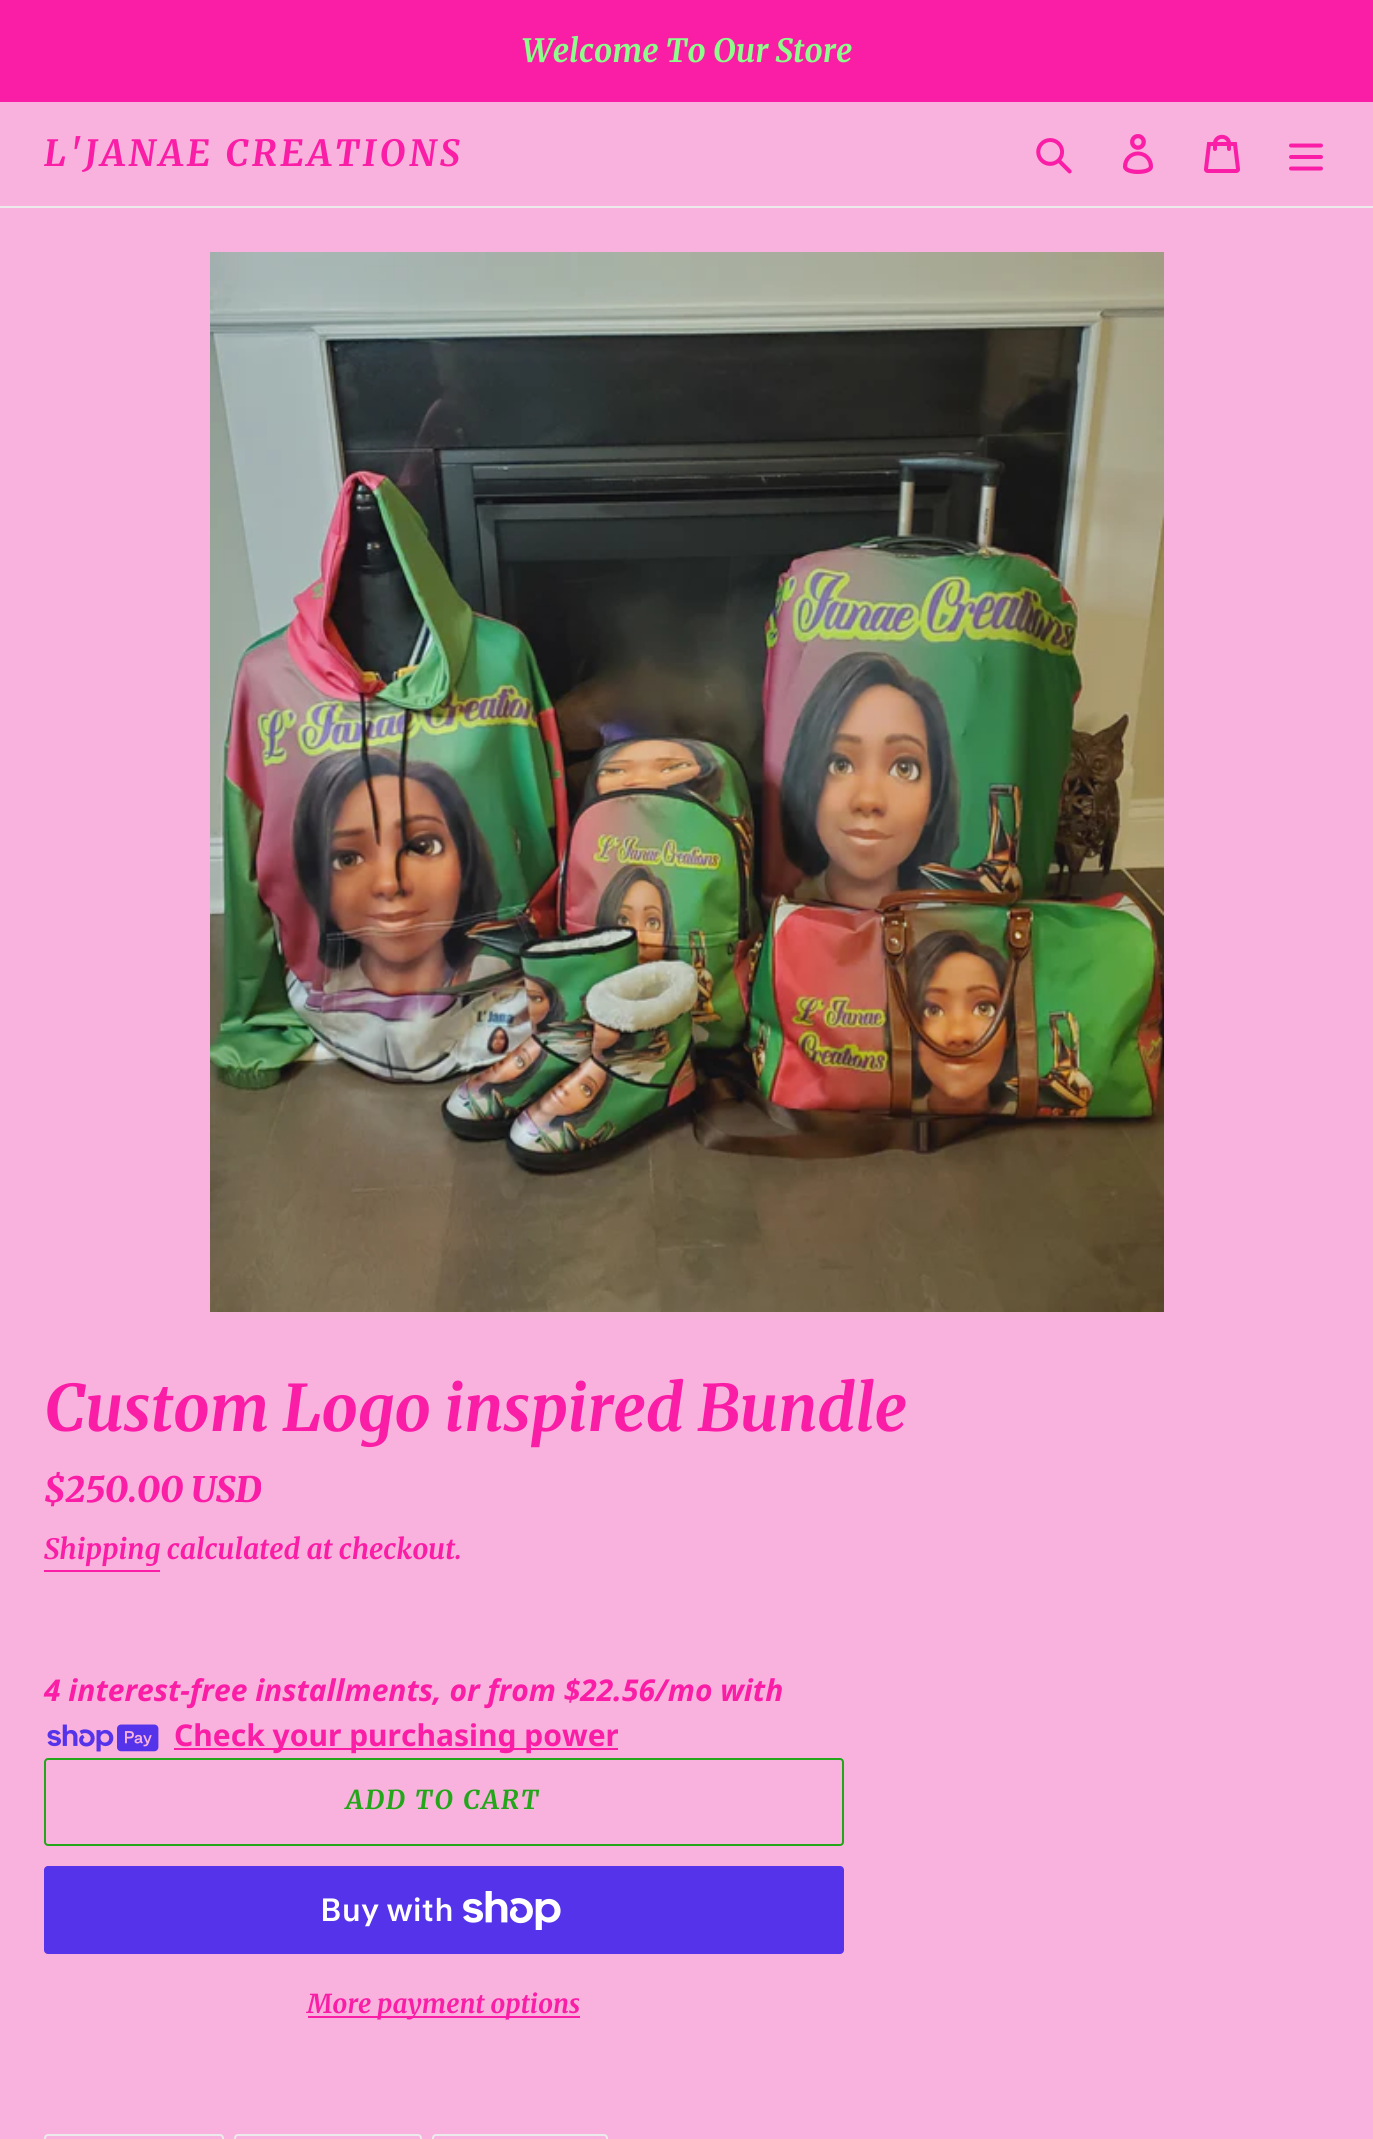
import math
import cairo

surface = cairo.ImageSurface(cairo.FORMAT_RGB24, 1373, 2139)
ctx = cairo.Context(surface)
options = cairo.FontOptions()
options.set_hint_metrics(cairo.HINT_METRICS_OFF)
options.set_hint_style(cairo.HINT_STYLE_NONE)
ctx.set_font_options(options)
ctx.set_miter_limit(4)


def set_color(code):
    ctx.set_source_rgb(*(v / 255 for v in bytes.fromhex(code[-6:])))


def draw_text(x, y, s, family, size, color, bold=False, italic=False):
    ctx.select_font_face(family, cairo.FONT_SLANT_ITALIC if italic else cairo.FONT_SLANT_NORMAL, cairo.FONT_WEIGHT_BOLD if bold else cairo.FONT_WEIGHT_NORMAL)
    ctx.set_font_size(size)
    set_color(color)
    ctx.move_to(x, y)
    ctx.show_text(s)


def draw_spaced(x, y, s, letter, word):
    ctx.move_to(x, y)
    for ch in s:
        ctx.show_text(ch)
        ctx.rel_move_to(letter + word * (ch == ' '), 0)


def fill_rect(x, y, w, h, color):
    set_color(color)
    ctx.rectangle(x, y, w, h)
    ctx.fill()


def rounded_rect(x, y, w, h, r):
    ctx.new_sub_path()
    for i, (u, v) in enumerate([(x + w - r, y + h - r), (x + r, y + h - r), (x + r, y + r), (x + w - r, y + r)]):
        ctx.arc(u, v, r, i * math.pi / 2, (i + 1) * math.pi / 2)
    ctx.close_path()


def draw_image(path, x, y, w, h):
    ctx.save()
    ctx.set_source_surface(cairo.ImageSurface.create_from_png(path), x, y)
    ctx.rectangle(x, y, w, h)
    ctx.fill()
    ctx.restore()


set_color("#f9b1dd")
ctx.paint()
fill_rect(0, 0, 1373, 102, "#fa1ea6")
draw_text(522, 62, "Welcome To Our Store", "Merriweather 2", 32, "#8dfc8a", bold=True, italic=True)
fill_rect(0, 206, 1373, 2, "#ebebeb")
ctx.set_font_size(36)
set_color("#fa1ea6")
draw_spaced(44, 166, "L'JANAE CREATIONS", 3.6, 0)
draw_image("assets/img1.png", 1036, 138, 36, 36)
draw_image("assets/img2.png", 1123, 134, 30, 40)
draw_image("assets/img3.png", 1204, 134, 36, 39)
draw_image("assets/img4.png", 1289, 143, 34, 28)
draw_image("assets/img5.png", 210, 252, 954, 1060)
draw_text(44, 1431, "Custom Logo inspired Bundle", "Merriweather", 64, "#fa1ea6", bold=True, italic=True)
draw_text(44, 1502, "$250.00 USD", "Merriweather Black", 35, "#fa1ea6", italic=True)
draw_text(44, 1559, "Shipping calculated at checkout.", "Merriweather 2", 28, "#fa1ea6", bold=True, italic=True)
fill_rect(44, 1570, 116, 2, "#fa1ea6")
draw_text(44, 1701, "4 interest-free installments, or from $22.56/mo with", "Noto Sans", 30, "#fa1ea6", bold=True, italic=True)
draw_image("assets/img6.png", 47, 1724, 112, 28)
fill_rect(174, 1748, 444, 2, "#fa1ea6")
ctx.save()
ctx.rectangle(174, 1712, 444, 46)
ctx.clip()
draw_text(174, 1746, "Check your purchasing power", "Noto Sans", 30, "#fa1ea6", bold=True)
ctx.restore()
rounded_rect(45, 1759, 798, 86, 3)
set_color("#24a61a")
ctx.stroke()
ctx.select_font_face("Merriweather 2", cairo.FONT_SLANT_ITALIC, cairo.FONT_WEIGHT_BOLD)
ctx.set_font_size(26)
draw_spaced(346, 1809, "ADD TO CART", 2, 0)
set_color("#5433eb")
rounded_rect(44, 1866, 800, 88, 4)
ctx.fill()
draw_text(320, 1921, "Buy with", "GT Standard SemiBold", 32, "#ffffff")
draw_image("assets/img7.png", 463, 1891, 98, 39)
fill_rect(308, 2016, 272, 2, "#fa1ea6")
draw_text(307, 2013, "More payment options", "Merriweather 2", 26, "#fa1ea6", bold=True, italic=True)
rounded_rect(45, 2135, 178, 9, 3)
set_color("#ebebeb")
ctx.stroke()
rounded_rect(235, 2135, 186, 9, 3)
ctx.stroke()
rounded_rect(433, 2135, 174, 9, 3)
ctx.stroke()
surface.write_to_png("output.png")
